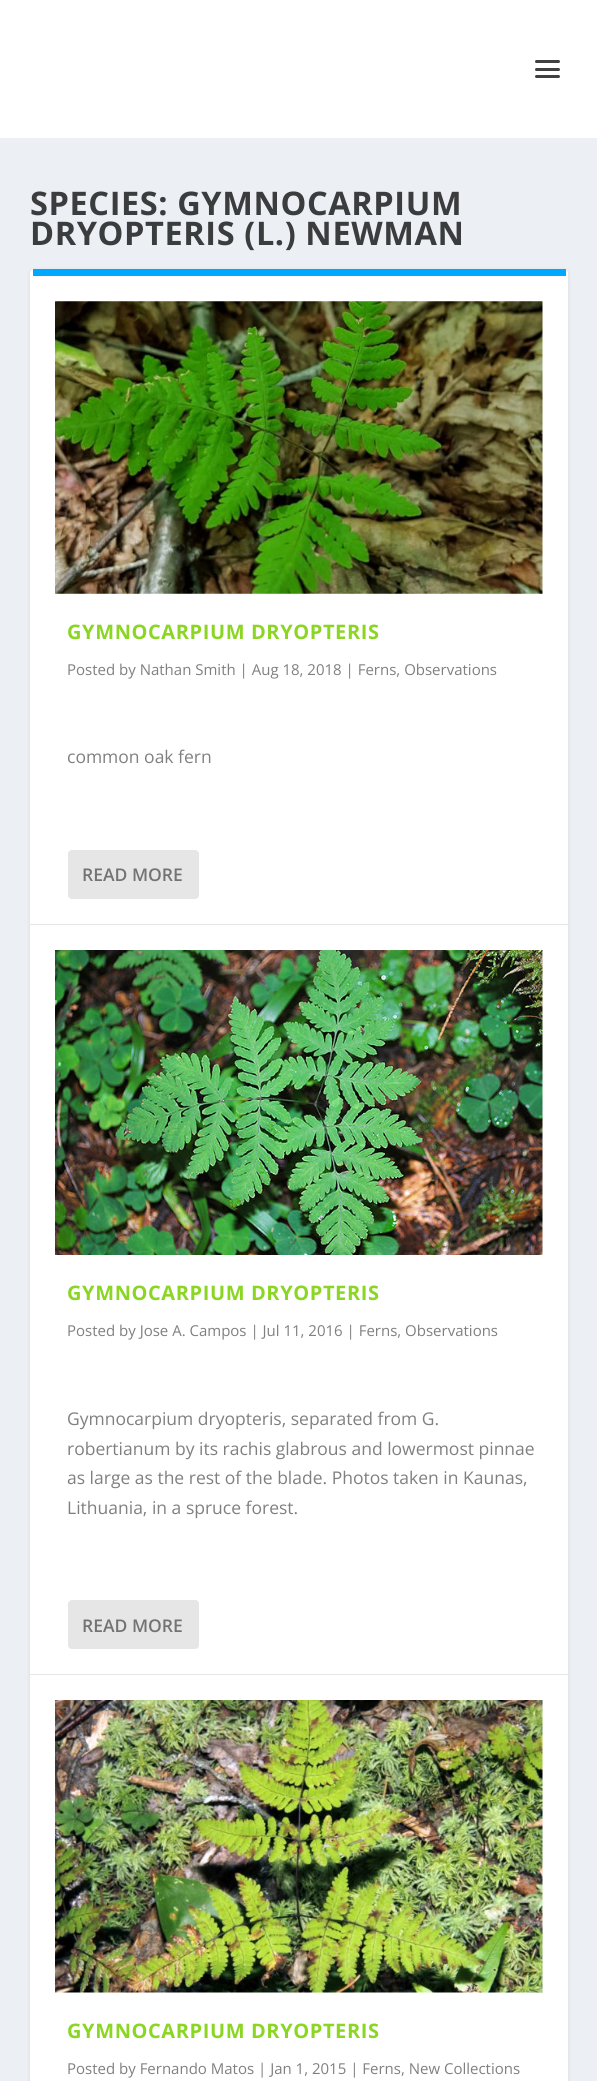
import math
import cairo

surface = cairo.ImageSurface(cairo.FORMAT_RGB24, 597, 2081)
ctx = cairo.Context(surface)
options = cairo.FontOptions()
options.set_hint_metrics(cairo.HINT_METRICS_OFF)
options.set_hint_style(cairo.HINT_STYLE_NONE)
ctx.set_font_options(options)
ctx.set_miter_limit(4)


def set_color(code):
    ctx.set_source_rgb(*(v / 255 for v in bytes.fromhex(code[-6:])))


def draw_text(x, y, s, family, size, color, bold=False, italic=False):
    ctx.select_font_face(family, cairo.FONT_SLANT_ITALIC if italic else cairo.FONT_SLANT_NORMAL, cairo.FONT_WEIGHT_BOLD if bold else cairo.FONT_WEIGHT_NORMAL)
    ctx.set_font_size(size)
    set_color(color)
    ctx.move_to(x, y)
    ctx.show_text(s)


def draw_spaced(x, y, s, letter, word):
    ctx.move_to(x, y)
    for ch in s:
        ctx.show_text(ch)
        ctx.rel_move_to(letter + word * (ch == ' '), 0)


def fill_rect(x, y, w, h, color):
    set_color(color)
    ctx.rectangle(x, y, w, h)
    ctx.fill()


def rounded_rect(x, y, w, h, r):
    ctx.new_sub_path()
    for i, (u, v) in enumerate([(x + w - r, y + h - r), (x + r, y + h - r), (x + r, y + r), (x + w - r, y + r)]):
        ctx.arc(u, v, r, i * math.pi / 2, (i + 1) * math.pi / 2)
    ctx.close_path()


def draw_shadow(x, y, w, h, r, blur, alpha):
    ctx.push_group_with_content(cairo.CONTENT_ALPHA)
    ctx.set_operator(cairo.OPERATOR_SOURCE)
    for i in range(15, -16, -2):
        e = blur * i / 6
        if min(w, h) + 2 * e > 0:
            ctx.set_source_rgba(0, 0, 0, alpha * math.erfc((i - 1) / 8.5) / 2)
            rounded_rect(x - e, y - e, w + 2 * e, h + 2 * e, max(0, min(r + e + blur * .6, min(w, h) / 2 + e)))
            ctx.fill()
    ctx.mask(ctx.pop_group())


def draw_image(path, x, y, w, h):
    ctx.save()
    ctx.set_source_surface(cairo.ImageSurface.create_from_png(path), x, y)
    ctx.rectangle(x, y, w, h)
    ctx.fill()
    ctx.restore()


set_color("#ecf0f5")
ctx.paint()
fill_rect(0, 0, 597, 138, "#ffffff")
set_color("#404040")
rounded_rect(535, 60, 25, 3, 1.5)
ctx.fill()
rounded_rect(535, 68, 25, 3, 1.5)
ctx.fill()
rounded_rect(535, 75, 25, 3, 1.5)
ctx.fill()
ctx.select_font_face("Open Sans", cairo.FONT_SLANT_NORMAL, cairo.FONT_WEIGHT_BOLD)
ctx.set_font_size(32.5)
set_color("#3b3c3d")
draw_spaced(30, 215, "SPECIES: GYMNOCARPIUM", 0.6, 0)
draw_spaced(30, 245, "DRYOPTERIS (L.) NEWMAN", 0.6, 0)
set_color("#000000")
draw_shadow(30, 270, 538, 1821, 4, 2, 0.1)
set_color("#ffffff")
rounded_rect(30, 269, 538, 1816, 4)
ctx.fill()
fill_rect(33, 269, 533, 7, "#00a8ff")
fill_rect(30, 924, 538, 1, "#e6e6e6")
draw_image("assets/img1.png", 55, 301, 488, 293)
ctx.set_font_size(20)
set_color("#8bd623")
draw_spaced(67, 639, "GYMNOCARPIUM DRYOPTERIS", 0.6, 0)
draw_text(67, 675, "Posted by Nathan Smith | Aug 18, 2018 | Ferns, Observations", "Open Sans", 15, "#808080")
draw_text(67, 763, "common oak fern", "Open Sans", 17.5, "#808080")
set_color("#e6e6e6")
rounded_rect(68, 850, 131, 49, 4)
ctx.fill()
draw_text(82, 881, "READ MORE", "Open Sans SemiBold", 17.5, "#737373")
fill_rect(30, 1674, 538, 1, "#e6e6e6")
draw_image("assets/img2.png", 55, 950, 488, 305)
ctx.select_font_face("Open Sans", cairo.FONT_SLANT_NORMAL, cairo.FONT_WEIGHT_BOLD)
ctx.set_font_size(20)
set_color("#8bd623")
draw_spaced(67, 1300, "GYMNOCARPIUM DRYOPTERIS", 0.6, 0)
draw_text(67, 1336, "Posted by Jose A. Campos | Jul 11, 2016 | Ferns, Observations", "Open Sans", 15, "#808080")
draw_text(67, 1425, "Gymnocarpium dryopteris, separated from G.", "Open Sans", 17.5, "#808080")
draw_text(67, 1455, "robertianum by its rachis glabrous and lowermost pinnae", "Open Sans", 17.5, "#808080")
draw_text(67, 1484, "as large as the rest of the blade. Photos taken in Kaunas,", "Open Sans", 17.5, "#808080")
draw_text(67, 1514, "Lithuania, in a spruce forest.", "Open Sans", 17.5, "#808080")
set_color("#e6e6e6")
rounded_rect(68, 1600, 131, 49, 4)
ctx.fill()
draw_text(82, 1632, "READ MORE", "Open Sans SemiBold", 17.5, "#737373")
draw_image("assets/img3.png", 55, 1700, 488, 293)
ctx.select_font_face("Open Sans", cairo.FONT_SLANT_NORMAL, cairo.FONT_WEIGHT_BOLD)
ctx.set_font_size(20)
set_color("#8bd623")
draw_spaced(67, 2038, "GYMNOCARPIUM DRYOPTERIS", 0.6, 0)
draw_text(67, 2074, "Posted by Fernando Matos | Jan 1, 2015 | Ferns, New Collections", "Open Sans", 15, "#808080")
surface.write_to_png("output.png")
